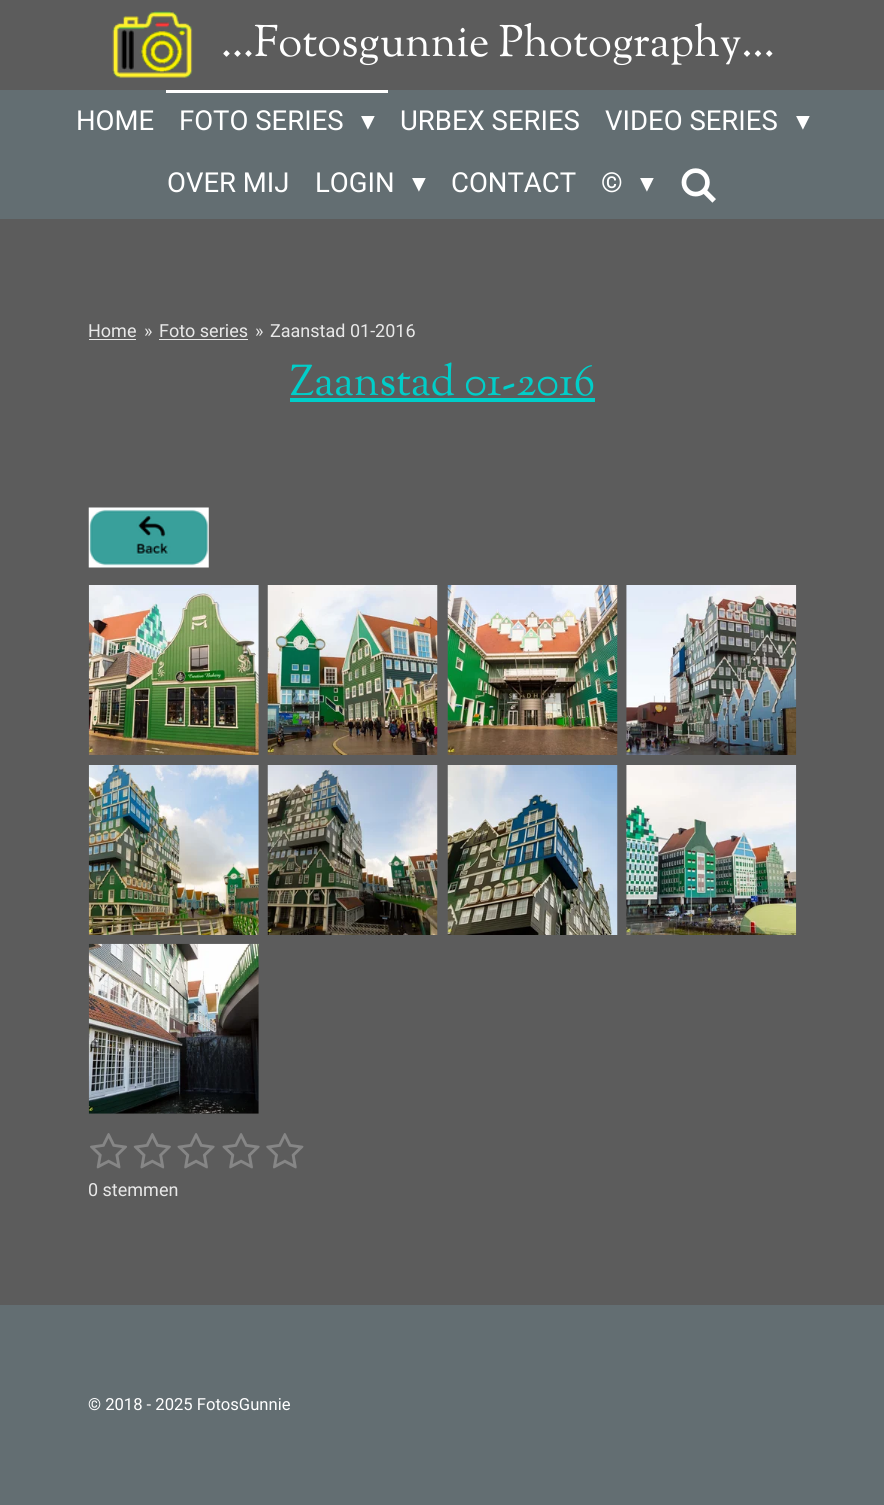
import math
import cairo

surface = cairo.ImageSurface(cairo.FORMAT_RGB24, 884, 1505)
ctx = cairo.Context(surface)
options = cairo.FontOptions()
options.set_hint_metrics(cairo.HINT_METRICS_OFF)
options.set_hint_style(cairo.HINT_STYLE_NONE)
ctx.set_font_options(options)
ctx.set_miter_limit(4)


def set_color(code):
    ctx.set_source_rgb(*(v / 255 for v in bytes.fromhex(code[-6:])))


def draw_text(x, y, s, family, size, color, bold=False, italic=False):
    ctx.select_font_face(family, cairo.FONT_SLANT_ITALIC if italic else cairo.FONT_SLANT_NORMAL, cairo.FONT_WEIGHT_BOLD if bold else cairo.FONT_WEIGHT_NORMAL)
    ctx.set_font_size(size)
    set_color(color)
    ctx.move_to(x, y)
    ctx.show_text(s)


def fill_rect(x, y, w, h, color):
    set_color(color)
    ctx.rectangle(x, y, w, h)
    ctx.fill()


def draw_image(path, x, y, w, h):
    ctx.save()
    ctx.set_source_surface(cairo.ImageSurface.create_from_png(path), x, y)
    ctx.rectangle(x, y, w, h)
    ctx.fill()
    ctx.restore()


set_color("#5c5c5c")
ctx.paint()
draw_image("assets/img1.png", 112, 11, 81, 67)
draw_text(221, 56, "...Fotosgunnie Photography...", "Sorts Mill Goudy", 43.75, "#ffffff")
fill_rect(0, 90, 884, 129, "#636e72")
draw_text(76, 130, "HOME", "Roboto", 27.5, "#ffffff")
fill_rect(166, 90, 222, 3, "#ffffff")
draw_text(179, 130, "FOTO SERIES", "Roboto", 27.5, "#ffffff")
draw_text(361, 130, "▾", "DejaVu Sans", 27.5, "#ffffff")
draw_text(400, 130, "URBEX SERIES", "Roboto", 27.5, "#ffffff")
draw_text(605, 130, "VIDEO SERIES", "Roboto", 27.5, "#ffffff")
draw_text(796, 130, "▾", "DejaVu Sans", 27.5, "#ffffff")
draw_text(167, 192, "OVER MIJ", "Roboto", 27.5, "#ffffff")
draw_text(315, 192, "LOGIN", "Roboto", 27.5, "#ffffff")
draw_text(412, 192, "▾", "DejaVu Sans", 27.5, "#ffffff")
draw_text(451, 192, "CONTACT", "Roboto", 27.5, "#ffffff")
draw_text(601, 192, "©", "Roboto", 27.5, "#ffffff")
draw_text(640, 192, "▾", "DejaVu Sans", 27.5, "#ffffff")
draw_image("assets/img2.png", 681, 168, 35, 35)
draw_text(88, 337, "Home", "Roboto", 18, "#e8e8e8")
fill_rect(89, 339, 47, 1, "#e8e8e8")
draw_text(144, 337, "»", "Roboto", 18, "#e8e8e8")
draw_text(159, 337, "Foto series", "Roboto", 18, "#e8e8e8")
fill_rect(159, 339, 89, 1, "#e8e8e8")
draw_text(255, 337, "»", "Roboto", 18, "#e8e8e8")
draw_text(270, 337, "Zaanstad 01-2016", "Roboto", 18, "#e8e8e8")
draw_text(290, 395, "Zaanstad 01-2016", "Sorts Mill Goudy", 43, "#00cec9")
fill_rect(290, 398, 305, 4, "#00cec9")
draw_image("assets/img3.png", 88, 507, 121, 61)
draw_image("assets/img4.png", 88, 585, 171, 170)
draw_image("assets/img5.png", 267, 585, 171, 170)
draw_image("assets/img6.png", 447, 585, 171, 170)
draw_image("assets/img7.png", 626, 585, 171, 170)
draw_image("assets/img8.png", 88, 765, 171, 170)
draw_image("assets/img9.png", 267, 765, 171, 170)
draw_image("assets/img10.png", 447, 765, 171, 170)
draw_image("assets/img11.png", 626, 765, 171, 170)
draw_image("assets/img12.png", 88, 943, 171, 171)
draw_image("assets/img13.png", 90, 1133, 37, 36)
draw_image("assets/img14.png", 133, 1133, 38, 36)
draw_image("assets/img15.png", 177, 1133, 38, 36)
draw_image("assets/img15.png", 222, 1133, 38, 36)
draw_image("assets/img16.png", 266, 1133, 38, 36)
draw_text(88, 1196, "0 stemmen", "Roboto", 18, "#e8e8e8")
fill_rect(0, 1305, 884, 200, "#636e72")
draw_text(88, 1410, "© 2018 - 2025 FotosGunnie", "Roboto", 16.6, "#ffffff")
surface.write_to_png("output.png")
